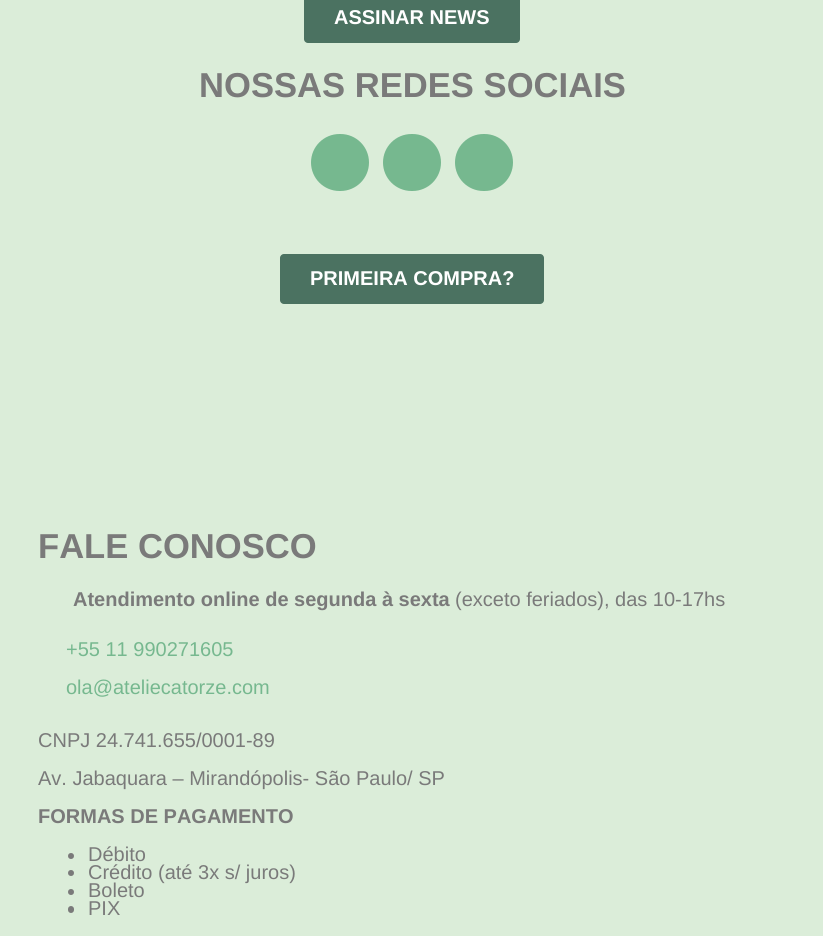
import math
import cairo

surface = cairo.ImageSurface(cairo.FORMAT_RGB24, 823, 936)
ctx = cairo.Context(surface)
options = cairo.FontOptions()
options.set_hint_metrics(cairo.HINT_METRICS_OFF)
options.set_hint_style(cairo.HINT_STYLE_NONE)
ctx.set_font_options(options)
ctx.set_miter_limit(4)


def set_color(code):
    ctx.set_source_rgb(*(v / 255 for v in bytes.fromhex(code[-6:])))


def draw_text(x, y, s, family, size, color, bold=False, italic=False):
    ctx.select_font_face(family, cairo.FONT_SLANT_ITALIC if italic else cairo.FONT_SLANT_NORMAL, cairo.FONT_WEIGHT_BOLD if bold else cairo.FONT_WEIGHT_NORMAL)
    ctx.set_font_size(size)
    set_color(color)
    ctx.move_to(x, y)
    ctx.show_text(s)


def rounded_rect(x, y, w, h, r):
    ctx.new_sub_path()
    for i, (u, v) in enumerate([(x + w - r, y + h - r), (x + r, y + h - r), (x + r, y + r), (x + w - r, y + r)]):
        ctx.arc(u, v, r, i * math.pi / 2, (i + 1) * math.pi / 2)
    ctx.close_path()


set_color("#dbedd9")
ctx.paint()
set_color("#4b7261")
rounded_rect(304, -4, 216, 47, 4)
ctx.fill()
draw_text(334, 24, "ASSINAR NEWS", "Liberation Sans", 20, "#ffffff", bold=True)
draw_text(199, 97, "NOSSAS REDES SOCIAIS", "Liberation Sans", 34.6, "#7a7a7a", bold=True)
set_color("#76b88f")
rounded_rect(311, 134, 58, 57, 28.5)
ctx.fill()
rounded_rect(383, 134, 58, 57, 28.5)
ctx.fill()
rounded_rect(455, 134, 58, 57, 28.5)
ctx.fill()
set_color("#4b7261")
rounded_rect(280, 254, 264, 50, 4)
ctx.fill()
draw_text(310, 285, "PRIMEIRA COMPRA?", "Liberation Sans", 20, "#ffffff", bold=True)
draw_text(38, 558, "FALE CONOSCO", "Liberation Sans", 34.6, "#7a7a7a", bold=True)
draw_text(73, 606, "Atendimento online de segunda à sexta", "Liberation Sans", 20, "#7a7a7a", bold=True)
draw_text(455, 606, "(exceto feriados), das 10-17hs", "Liberation Sans", 20, "#7a7a7a")
draw_text(66, 656, "+55 11 990271605", "Liberation Sans", 20, "#76b88f")
draw_text(66, 694, "ola@ateliecatorze.com", "Liberation Sans", 20, "#76b88f")
draw_text(38, 747, "CNPJ 24.741.655/0001-89", "Liberation Sans", 20, "#7a7a7a")
draw_text(38, 785, "Av. Jabaquara – Mirandópolis- São Paulo/ SP", "Liberation Sans", 20, "#7a7a7a")
draw_text(38, 823, "FORMAS DE PAGAMENTO", "Liberation Sans", 20, "#7a7a7a", bold=True)
ctx.new_path()
ctx.arc(71, 856, 3, 0, 2 * math.pi)
ctx.fill()
draw_text(88, 861, "Débito", "Liberation Sans", 20, "#7a7a7a")
ctx.new_path()
ctx.arc(71, 873, 3, 0, 2 * math.pi)
ctx.fill()
draw_text(88, 879, "Crédito (até 3x s/ juros)", "Liberation Sans", 20, "#7a7a7a")
ctx.new_path()
ctx.arc(71, 892, 3, 0, 2 * math.pi)
ctx.fill()
draw_text(88, 897, "Boleto", "Liberation Sans", 20, "#7a7a7a")
rounded_rect(68, 906, 6, 7, 3)
ctx.fill()
draw_text(88, 915, "PIX", "Liberation Sans", 20, "#7a7a7a")
surface.write_to_png("output.png")
